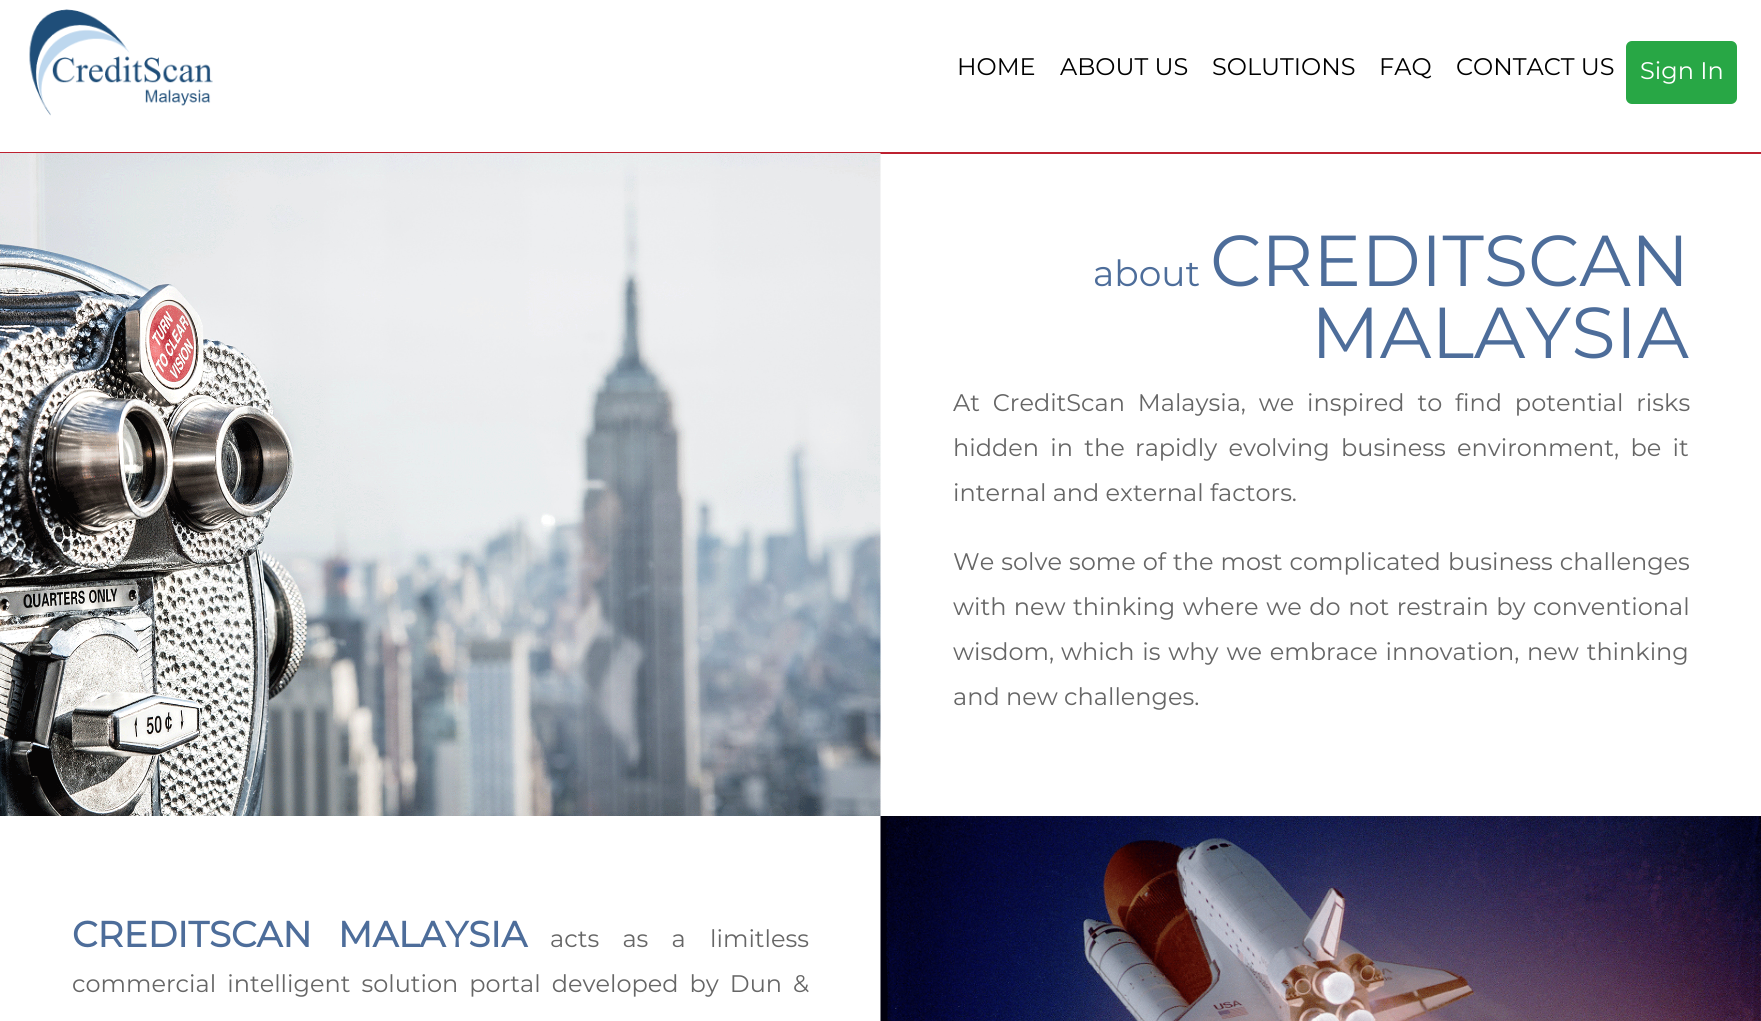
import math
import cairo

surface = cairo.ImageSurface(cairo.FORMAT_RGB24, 1761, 1021)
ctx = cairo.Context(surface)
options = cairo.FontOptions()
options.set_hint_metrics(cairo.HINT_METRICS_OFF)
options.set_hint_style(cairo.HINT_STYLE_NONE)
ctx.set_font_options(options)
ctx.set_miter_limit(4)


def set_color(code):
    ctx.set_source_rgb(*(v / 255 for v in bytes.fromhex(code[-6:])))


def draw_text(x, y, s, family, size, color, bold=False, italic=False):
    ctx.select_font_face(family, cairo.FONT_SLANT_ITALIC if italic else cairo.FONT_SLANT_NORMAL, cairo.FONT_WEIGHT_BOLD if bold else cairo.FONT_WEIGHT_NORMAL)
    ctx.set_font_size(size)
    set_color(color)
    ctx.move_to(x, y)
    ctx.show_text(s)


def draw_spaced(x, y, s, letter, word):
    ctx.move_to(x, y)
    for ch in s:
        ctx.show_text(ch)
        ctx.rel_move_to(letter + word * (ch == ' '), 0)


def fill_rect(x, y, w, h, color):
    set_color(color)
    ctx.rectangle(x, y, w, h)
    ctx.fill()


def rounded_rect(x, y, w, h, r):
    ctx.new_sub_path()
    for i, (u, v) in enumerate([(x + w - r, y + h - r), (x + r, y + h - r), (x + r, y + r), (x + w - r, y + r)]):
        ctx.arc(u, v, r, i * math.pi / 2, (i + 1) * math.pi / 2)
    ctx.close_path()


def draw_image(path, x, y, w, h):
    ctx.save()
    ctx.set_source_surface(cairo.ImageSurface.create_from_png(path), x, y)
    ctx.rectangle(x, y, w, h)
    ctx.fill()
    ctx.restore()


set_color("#ffffff")
ctx.paint()
fill_rect(0, 152, 1761, 2, "#bd2130")
draw_image("assets/img1.png", 29, 9, 184, 107)
draw_text(957, 75, "HOME", "Montserrat Thin", 24, "#000000")
draw_text(1060, 75, "ABOUT US", "Montserrat Thin", 24, "#000000")
draw_text(1212, 75, "SOLUTIONS", "Montserrat Thin", 24, "#000000")
draw_text(1379, 75, "FAQ", "Montserrat Thin", 24, "#000000")
draw_text(1456, 75, "CONTACT US", "Montserrat Thin", 24, "#000000")
set_color("#28a745")
rounded_rect(1627, 42, 109, 61, 5)
ctx.fill_preserve()
ctx.stroke()
draw_text(1640, 79, "Sign In", "Montserrat Thin", 24, "#ffffff")
draw_image("assets/img2.png", 0, 153, 881, 663)
draw_text(1093, 286, "about", "Montserrat Thin", 36, "#4d6d9a")
draw_text(1210, 286, "CREDITSCAN", "Montserrat Thin", 72, "#4d6d9a")
draw_text(1311, 358, "MALAYSIA", "Montserrat Thin", 72, "#4d6d9a")
ctx.set_font_size(24)
set_color("#666666")
draw_spaced(953, 411, "At CreditScan Malaysia, we inspired to find potential risks", 0, 6.5)
draw_spaced(953, 456, "hidden in the", 0, 5)
draw_spaced(1135, 456, "rapidly evolving", 0, 5)
draw_spaced(1341, 456, "business environment, be it", 0, 5)
draw_text(953, 501, "internal and external factors.", "Montserrat Thin", 24, "#666666")
draw_spaced(953, 570, "We solve some of the most complicated business challenges", 0, 0.75)
draw_spaced(953, 615, "with new", 0, 1)
draw_spaced(1073, 615, "thinking where we do not restrain by conventional", 0, 1.25)
draw_text(953, 660, "wisdom,", "Montserrat Thin", 24, "#666666")
draw_spaced(1061, 660, "which is why we embrace innovation, new thinking", 0, 1.5)
draw_text(953, 705, "and new challenges.", "Montserrat Thin", 24, "#666666")
ctx.select_font_face("Montserrat", cairo.FONT_SLANT_NORMAL, cairo.FONT_WEIGHT_BOLD)
ctx.set_font_size(36)
set_color("#4d6d9a")
draw_spaced(72, 947, "CREDITSCAN MALAYSIA", 0, 17)
ctx.select_font_face("Montserrat Thin")
ctx.set_font_size(24)
set_color("#666666")
draw_spaced(550, 947, "acts as a", 0, 17)
draw_text(710, 947, "limitless", "Montserrat Thin", 24, "#666666")
draw_spaced(72, 992, "commercial intelligent solution portal developed by Dun &", 0, 4.75)
draw_image("assets/img3.png", 880, 816, 881, 205)
surface.write_to_png("output.png")
